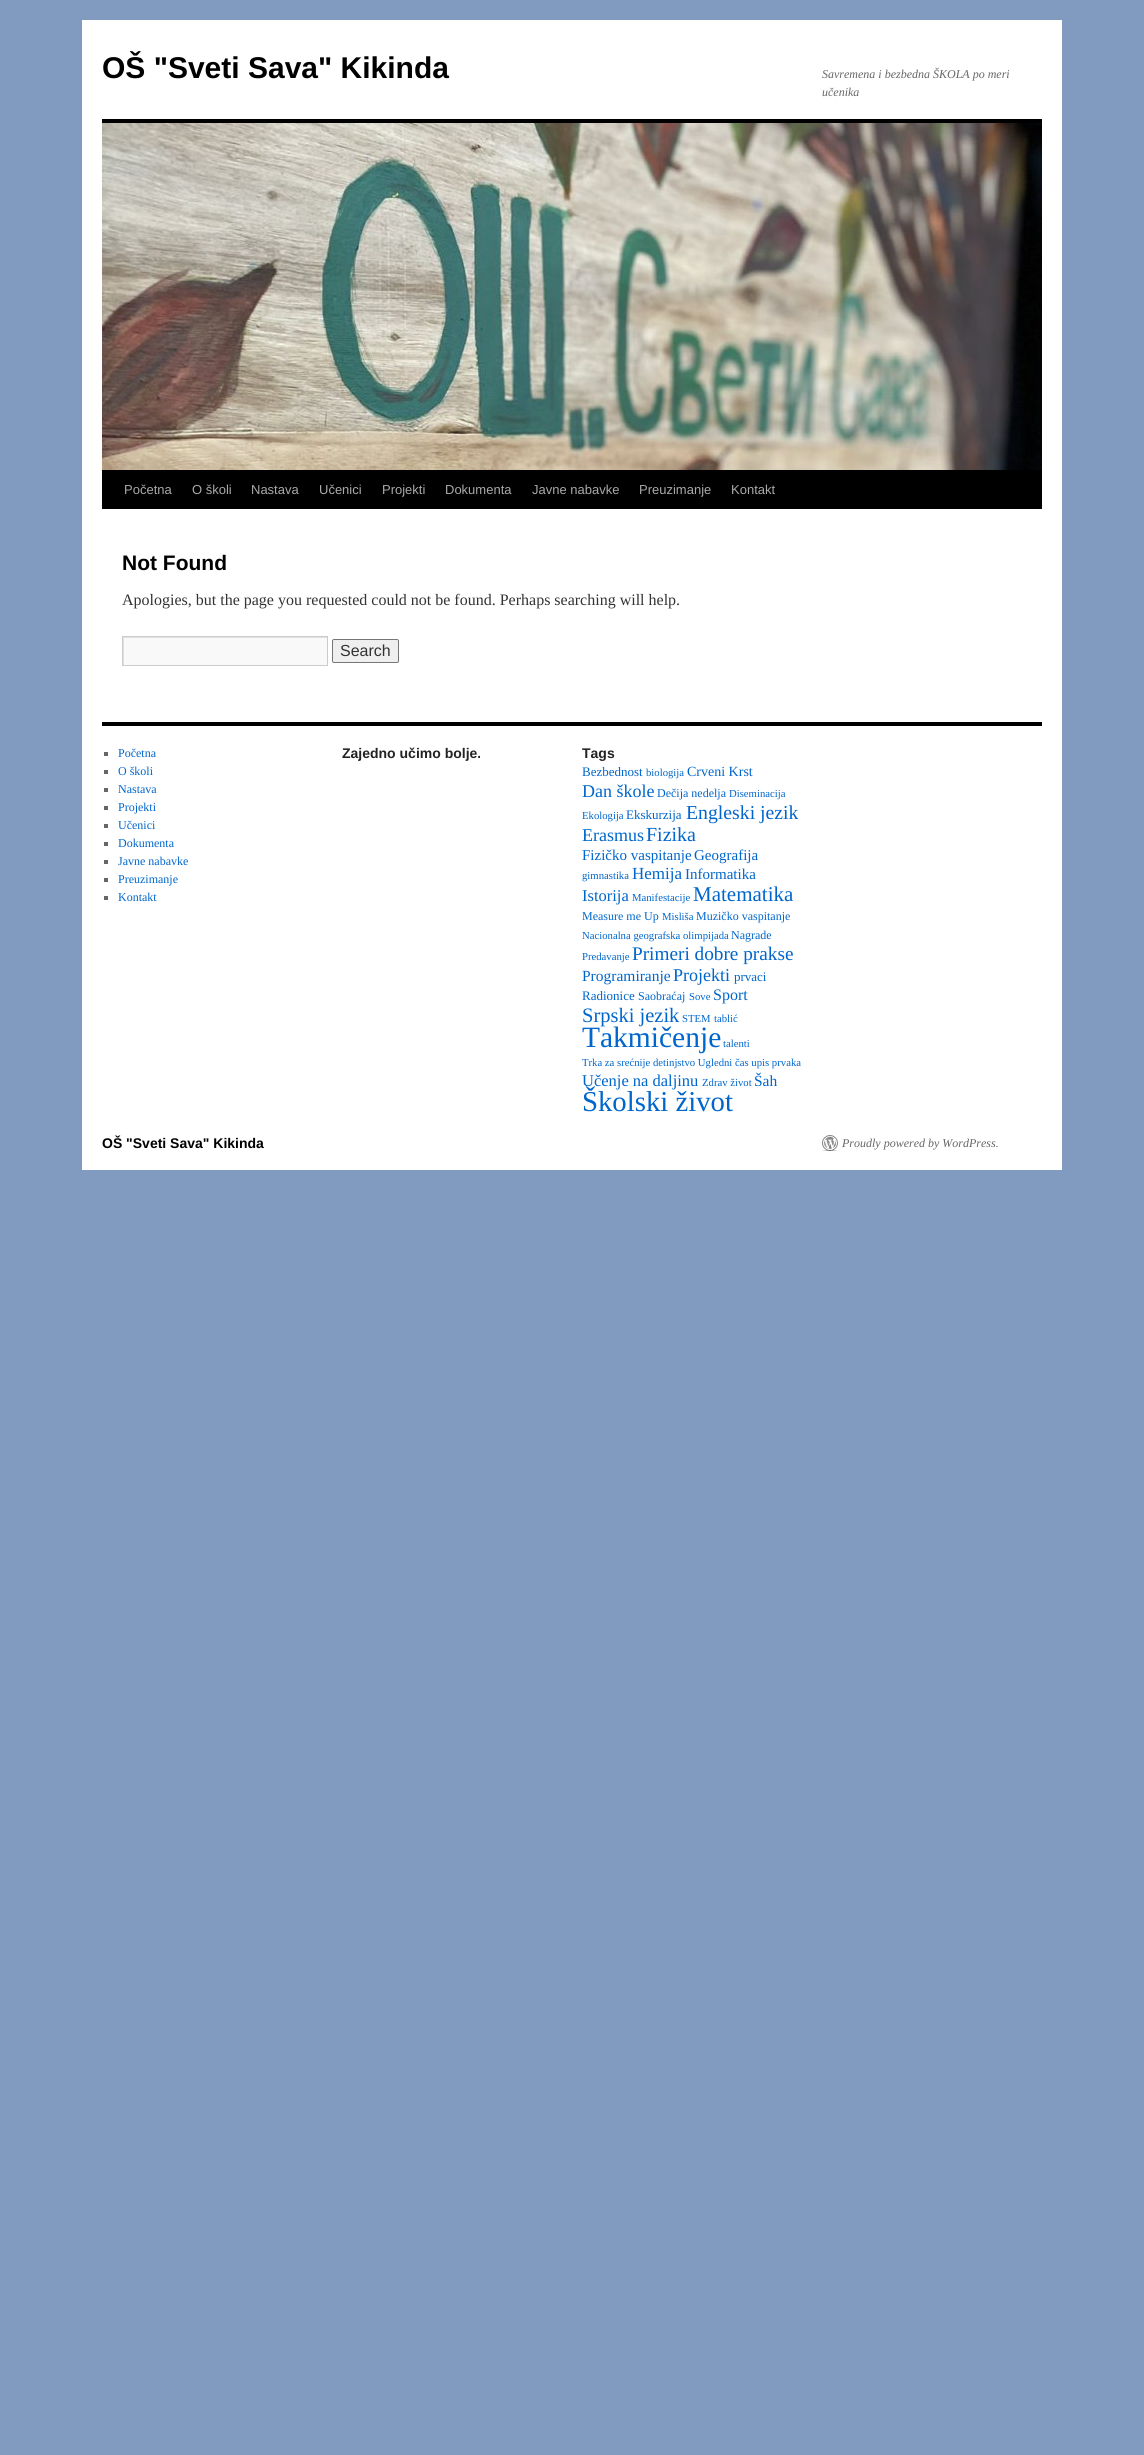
import math
import cairo

surface = cairo.ImageSurface(cairo.FORMAT_RGB24, 1144, 2455)
ctx = cairo.Context(surface)
options = cairo.FontOptions()
options.set_hint_metrics(cairo.HINT_METRICS_OFF)
options.set_hint_style(cairo.HINT_STYLE_NONE)
ctx.set_font_options(options)
ctx.set_miter_limit(4)


def set_color(code):
    ctx.set_source_rgb(*(v / 255 for v in bytes.fromhex(code[-6:])))


def draw_text(x, y, s, family, size, color, bold=False, italic=False):
    ctx.select_font_face(family, cairo.FONT_SLANT_ITALIC if italic else cairo.FONT_SLANT_NORMAL, cairo.FONT_WEIGHT_BOLD if bold else cairo.FONT_WEIGHT_NORMAL)
    ctx.set_font_size(size)
    set_color(color)
    ctx.move_to(x, y)
    ctx.show_text(s)


def fill_rect(x, y, w, h, color):
    set_color(color)
    ctx.rectangle(x, y, w, h)
    ctx.fill()


def rounded_rect(x, y, w, h, r):
    ctx.new_sub_path()
    for i, (u, v) in enumerate([(x + w - r, y + h - r), (x + r, y + h - r), (x + r, y + r), (x + w - r, y + r)]):
        ctx.arc(u, v, r, i * math.pi / 2, (i + 1) * math.pi / 2)
    ctx.close_path()


def draw_image(path, x, y, w, h):
    ctx.save()
    ctx.set_source_surface(cairo.ImageSurface.create_from_png(path), x, y)
    ctx.rectangle(x, y, w, h)
    ctx.fill()
    ctx.restore()


set_color("#809bbf")
ctx.paint()
fill_rect(82, 20, 980, 1150, "#ffffff")
draw_text(102, 78, "OŠ \"Sveti Sava\" Kikinda", "Liberation Sans", 30, "#000000", bold=True)
draw_text(822, 78, "Savremena i bezbedna ŠKOLA po meri", "Liberation Serif", 12, "#666666", italic=True)
draw_text(822, 96, "učenika", "Liberation Serif", 12, "#666666", italic=True)
fill_rect(102, 119, 940, 4, "#000000")
fill_rect(102, 470, 940, 39, "#000000")
draw_image("assets/img1.png", 102, 123, 940, 347)
draw_text(124, 494, "Početna", "Liberation Sans", 13, "#aaaaaa")
draw_text(192, 494, "O školi", "Liberation Sans", 13, "#aaaaaa")
draw_text(251, 494, "Nastava", "Liberation Sans", 13, "#aaaaaa")
draw_text(319, 494, "Učenici", "Liberation Sans", 13, "#aaaaaa")
draw_text(382, 494, "Projekti", "Liberation Sans", 13, "#aaaaaa")
draw_text(445, 494, "Dokumenta", "Liberation Sans", 13, "#aaaaaa")
draw_text(532, 494, "Javne nabavke", "Liberation Sans", 13, "#aaaaaa")
draw_text(639, 494, "Preuzimanje", "Liberation Sans", 13, "#aaaaaa")
draw_text(731, 494, "Kontakt", "Liberation Sans", 13, "#aaaaaa")
draw_text(122, 570, "Not Found", "Liberation Sans", 21, "#000000", bold=True)
draw_text(122, 605, "Apologies, but the page you requested could not be found. Perhaps searching will help.", "Liberation Serif", 16, "#333333")
fill_rect(124, 638, 203, 27, "#f9f9f9")
ctx.save()
ctx.rectangle(123, 637, 204, 28)
ctx.clip()
set_color("#e0e0e0")
ctx.set_fill_rule(cairo.FILL_RULE_EVEN_ODD)
ctx.new_path()
ctx.move_to(24, 538)
ctx.line_to(426, 538)
ctx.line_to(426, 764)
ctx.line_to(24, 764)
ctx.close_path()
ctx.move_to(124, 638)
ctx.line_to(328, 638)
ctx.line_to(328, 666)
ctx.line_to(124, 666)
ctx.close_path()
ctx.fill()
ctx.restore()
ctx.rectangle(122.5, 636.5, 205, 29)
set_color("#cccccc")
ctx.set_line_width(1)
ctx.stroke()
set_color("#efefef")
rounded_rect(332.5, 639.5, 66, 23, 1.5)
ctx.fill_preserve()
set_color("#767676")
ctx.stroke()
draw_text(340, 656, "Search", "Liberation Sans", 16, "#333333")
fill_rect(102, 722, 940, 4, "#000000")
fill_rect(104, 752, 4, 4, "#666666")
draw_text(118, 757, "Početna", "Liberation Serif", 12, "#0066cc")
fill_rect(104, 770, 4, 4, "#666666")
draw_text(118, 775, "O školi", "Liberation Serif", 12, "#0066cc")
fill_rect(104, 788, 4, 4, "#666666")
draw_text(118, 793, "Nastava", "Liberation Serif", 12, "#0066cc")
fill_rect(104, 806, 4, 4, "#666666")
draw_text(118, 811, "Projekti", "Liberation Serif", 12, "#0066cc")
fill_rect(104, 824, 4, 4, "#666666")
draw_text(118, 829, "Učenici", "Liberation Serif", 12, "#0066cc")
fill_rect(104, 842, 4, 4, "#666666")
draw_text(118, 847, "Dokumenta", "Liberation Serif", 12, "#0066cc")
fill_rect(104, 860, 4, 4, "#666666")
draw_text(118, 865, "Javne nabavke", "Liberation Serif", 12, "#0066cc")
fill_rect(104, 878, 4, 4, "#666666")
draw_text(118, 883, "Preuzimanje", "Liberation Serif", 12, "#0066cc")
fill_rect(104, 896, 4, 4, "#666666")
draw_text(118, 901, "Kontakt", "Liberation Serif", 12, "#0066cc")
draw_text(342, 758, "Zajedno učimo bolje.", "Liberation Sans", 14, "#222222", bold=True)
draw_text(582, 758, "Tags", "Liberation Sans", 14, "#222222", bold=True)
draw_text(582, 776, "Bezbednost", "Liberation Serif", 13, "#0066cc")
draw_text(646, 776, "biologija", "Liberation Serif", 10.7, "#0066cc")
draw_text(687, 776, "Crveni Krst", "Liberation Serif", 14, "#0066cc")
draw_text(582, 797, "Dan škole", "Liberation Serif", 18, "#0066cc")
draw_text(657, 797, "Dečija nedelja", "Liberation Serif", 12, "#0066cc")
draw_text(729, 797, "Diseminacija", "Liberation Serif", 10.7, "#0066cc")
draw_text(582, 819, "Ekologija", "Liberation Serif", 10.7, "#0066cc")
draw_text(626, 819, "Ekskurzija", "Liberation Serif", 13, "#0066cc")
draw_text(686, 819, "Engleski jezik", "Liberation Serif", 19.75, "#0066cc")
draw_text(582, 841, "Erasmus", "Liberation Serif", 18, "#0066cc")
draw_text(646, 841, "Fizika", "Liberation Serif", 20, "#0066cc")
draw_text(582, 860, "Fizičko vaspitanje", "Liberation Serif", 15, "#0066cc")
draw_text(694, 860, "Geografija", "Liberation Serif", 15, "#0066cc")
draw_text(582, 879, "gimnastika", "Liberation Serif", 10.7, "#0066cc")
draw_text(632, 879, "Hemija", "Liberation Serif", 17, "#0066cc")
draw_text(685, 879, "Informatika", "Liberation Serif", 15, "#0066cc")
draw_text(582, 901, "Istorija", "Liberation Serif", 16.5, "#0066cc")
draw_text(632, 901, "Manifestacije", "Liberation Serif", 10.7, "#0066cc")
draw_text(693, 901, "Matematika", "Liberation Serif", 21, "#0066cc")
draw_text(582, 920, "Measure me Up", "Liberation Serif", 12, "#0066cc")
draw_text(662, 920, "Misliša", "Liberation Serif", 10.7, "#0066cc")
draw_text(696, 920, "Muzičko vaspitanje", "Liberation Serif", 12, "#0066cc")
draw_text(582, 939, "Nacionalna geografska olimpijada", "Liberation Serif", 10.7, "#0066cc")
draw_text(731, 939, "Nagrade", "Liberation Serif", 12, "#0066cc")
draw_text(582, 960, "Predavanje", "Liberation Serif", 10.7, "#0066cc")
draw_text(632, 960, "Primeri dobre prakse", "Liberation Serif", 19.25, "#0066cc")
draw_text(582, 981, "Programiranje", "Liberation Serif", 15.5, "#0066cc")
draw_text(673, 981, "Projekti", "Liberation Serif", 18, "#0066cc")
draw_text(734, 981, "prvaci", "Liberation Serif", 13, "#0066cc")
draw_text(582, 1000, "Radionice", "Liberation Serif", 13, "#0066cc")
draw_text(638, 1000, "Saobraćaj", "Liberation Serif", 12, "#0066cc")
draw_text(689, 1000, "Sove", "Liberation Serif", 10.7, "#0066cc")
draw_text(713, 1000, "Sport", "Liberation Serif", 16, "#0066cc")
draw_text(582, 1022, "Srpski jezik", "Liberation Serif", 20.5, "#0066cc")
draw_text(682, 1022, "STEM", "Liberation Serif", 10.7, "#0066cc")
draw_text(714, 1022, "tablić", "Liberation Serif", 10.7, "#0066cc")
draw_text(582, 1047, "Takmičenje", "Liberation Serif", 29.5, "#0066cc")
draw_text(723, 1047, "talenti", "Liberation Serif", 10.7, "#0066cc")
draw_text(582, 1066, "Trka za srećnije detinjstvo Ugledni čas upis prvaka", "Liberation Serif", 10.7, "#0066cc")
draw_text(582, 1086, "Učenje na daljinu", "Liberation Serif", 16.5, "#0066cc")
draw_text(702, 1086, "Zdrav život", "Liberation Serif", 10.7, "#0066cc")
draw_text(754, 1086, "Šah", "Liberation Serif", 15.5, "#0066cc")
draw_text(582, 1111, "Školski život", "Liberation Serif", 28.75, "#0066cc")
draw_text(102, 1148, "OŠ \"Sveti Sava\" Kikinda", "Liberation Sans", 14, "#000000", bold=True)
draw_image("assets/img2.png", 822, 1135, 16, 16)
draw_text(842, 1147, "Proudly powered by WordPress.", "Liberation Serif", 12, "#666666", italic=True)
surface.write_to_png("output.png")
